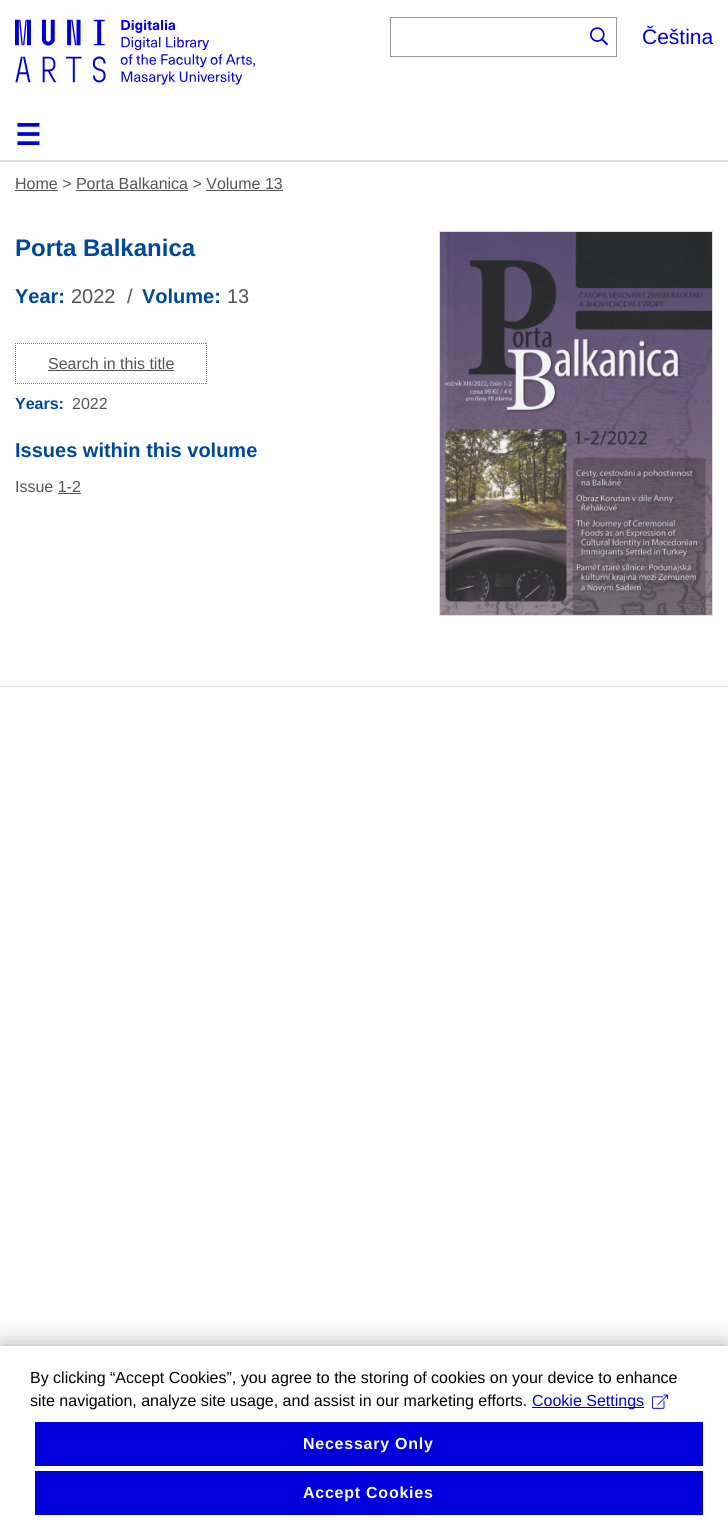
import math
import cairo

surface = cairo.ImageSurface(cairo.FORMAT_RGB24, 728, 1530)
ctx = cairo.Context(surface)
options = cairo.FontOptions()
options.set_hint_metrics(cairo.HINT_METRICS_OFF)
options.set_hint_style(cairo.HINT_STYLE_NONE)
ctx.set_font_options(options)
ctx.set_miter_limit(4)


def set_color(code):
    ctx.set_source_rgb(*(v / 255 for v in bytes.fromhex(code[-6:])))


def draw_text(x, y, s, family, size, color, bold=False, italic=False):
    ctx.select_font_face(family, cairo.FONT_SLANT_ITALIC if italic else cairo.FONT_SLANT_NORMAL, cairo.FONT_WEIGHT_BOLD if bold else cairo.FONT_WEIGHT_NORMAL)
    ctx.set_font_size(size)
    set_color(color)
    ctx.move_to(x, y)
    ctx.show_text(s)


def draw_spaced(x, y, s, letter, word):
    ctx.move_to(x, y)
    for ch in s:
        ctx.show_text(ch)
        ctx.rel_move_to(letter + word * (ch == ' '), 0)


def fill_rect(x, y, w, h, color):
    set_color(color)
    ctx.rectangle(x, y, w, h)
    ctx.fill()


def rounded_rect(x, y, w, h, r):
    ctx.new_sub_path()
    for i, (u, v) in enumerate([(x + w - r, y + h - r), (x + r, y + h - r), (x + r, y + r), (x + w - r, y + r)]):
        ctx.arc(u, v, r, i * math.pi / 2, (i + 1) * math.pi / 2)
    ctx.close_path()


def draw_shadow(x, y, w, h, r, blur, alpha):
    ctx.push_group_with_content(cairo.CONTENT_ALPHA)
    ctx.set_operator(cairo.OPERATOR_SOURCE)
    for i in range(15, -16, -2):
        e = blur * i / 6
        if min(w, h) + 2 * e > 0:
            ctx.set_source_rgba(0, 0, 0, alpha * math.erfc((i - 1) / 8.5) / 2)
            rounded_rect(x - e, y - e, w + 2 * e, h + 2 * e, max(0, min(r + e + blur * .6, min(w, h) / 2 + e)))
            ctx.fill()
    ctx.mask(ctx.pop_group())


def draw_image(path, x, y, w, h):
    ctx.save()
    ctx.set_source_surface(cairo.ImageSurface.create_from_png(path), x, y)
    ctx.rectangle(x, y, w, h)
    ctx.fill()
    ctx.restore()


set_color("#ffffff")
ctx.paint()
fill_rect(0, 160, 728, 2, "#dcdcdc")
draw_image("assets/img1.png", 15, 19, 240, 66)
fill_rect(390, 17, 227, 1, "#999999")
fill_rect(390, 56, 192, 1, "#999999")
fill_rect(390, 17, 1, 40, "#999999")
draw_image("assets/img2.png", 590, 27, 18, 19)
fill_rect(616, 17, 1, 40, "#999999")
fill_rect(582, 56, 35, 1, "#999999")
draw_text(642, 44, "Čeština", "Liberation Sans", 21, "#0000dc")
draw_text(15, 145, "☰", "DejaVu Sans", 29, "#0000dc", bold=True)
fill_rect(0, 686, 728, 1, "#dddddd")
draw_text(15, 189, "Home > Porta Balkanica > Volume 13", "Liberation Sans", 16, "#555555")
fill_rect(15, 190, 43, 1, "#555555")
fill_rect(76, 190, 112, 1, "#555555")
fill_rect(206, 190, 77, 1, "#555555")
draw_text(15, 256, "Porta Balkanica", "Liberation Sans", 24, "#004899", bold=True)
draw_text(15, 303, "Year:", "Liberation Sans", 20, "#004899", bold=True)
draw_text(71, 303, "2022", "Liberation Sans", 20, "#555555")
draw_text(127, 303, "/", "Liberation Sans", 20, "#555555")
draw_text(142, 303, "Volume:", "Liberation Sans", 20, "#004899", bold=True)
draw_text(227, 303, "13", "Liberation Sans", 20, "#555555")
ctx.new_path()
ctx.move_to(15, 343.5)
ctx.line_to(207, 343.5)
set_color("#808080")
ctx.set_line_width(1)
ctx.set_dash([1, 1])
ctx.stroke()
ctx.new_path()
ctx.move_to(206.5, 343)
ctx.line_to(206.5, 384)
ctx.stroke()
ctx.new_path()
ctx.move_to(15, 383.5)
ctx.line_to(207, 383.5)
ctx.stroke()
ctx.new_path()
ctx.move_to(15.5, 343)
ctx.line_to(15.5, 384)
ctx.stroke()
draw_text(48, 369, "Search in this title", "Liberation Sans", 16, "#555555")
fill_rect(48, 370, 126, 1, "#555555")
draw_text(15, 409, "Years:", "Liberation Sans", 16, "#004899", bold=True)
draw_text(72, 409, "2022", "Liberation Sans", 16, "#555555")
draw_text(15, 457, "Issues within this volume", "Liberation Sans", 20, "#004899", bold=True)
draw_text(15, 492, "Issue 1-2", "Liberation Sans", 16, "#555555")
fill_rect(58, 493, 23, 1, "#555555")
ctx.rectangle(439.5, 231.5, 273, 384)
set_color("#dddddd")
ctx.set_dash([])
ctx.stroke()
draw_image("assets/img3.png", 440, 232, 272, 383)
set_color("#aaaaaa")
draw_shadow(0, 1346, 728, 184, 0, 12.5, 1)
fill_rect(0, 1346, 728, 184, "#ffffff")
draw_text(30, 1383, "By clicking “Accept Cookies”, you agree to the storing of cookies on your device to enhance", "Liberation Sans", 16, "#000000")
draw_text(30, 1406, "site navigation, analyze site usage, and assist in our marketing efforts.", "Liberation Sans", 16, "#000000")
fill_rect(532, 1407, 112, 1, "#0000dc")
draw_text(532, 1406, "Cookie Settings", "Liberation Sans", 16, "#0000dc")
draw_image("assets/img4.png", 652, 1394, 16, 15)
fill_rect(35, 1422, 668, 44, "#0000dc")
ctx.select_font_face("Liberation Sans", cairo.FONT_SLANT_NORMAL, cairo.FONT_WEIGHT_BOLD)
set_color("#ffffff")
draw_spaced(303, 1449, "Necessary Only", 0.75, 0)
fill_rect(35, 1471, 668, 44, "#0000dc")
set_color("#ffffff")
draw_spaced(303, 1498, "Accept Cookies", 0.75, 0)
surface.write_to_png("output.png")
